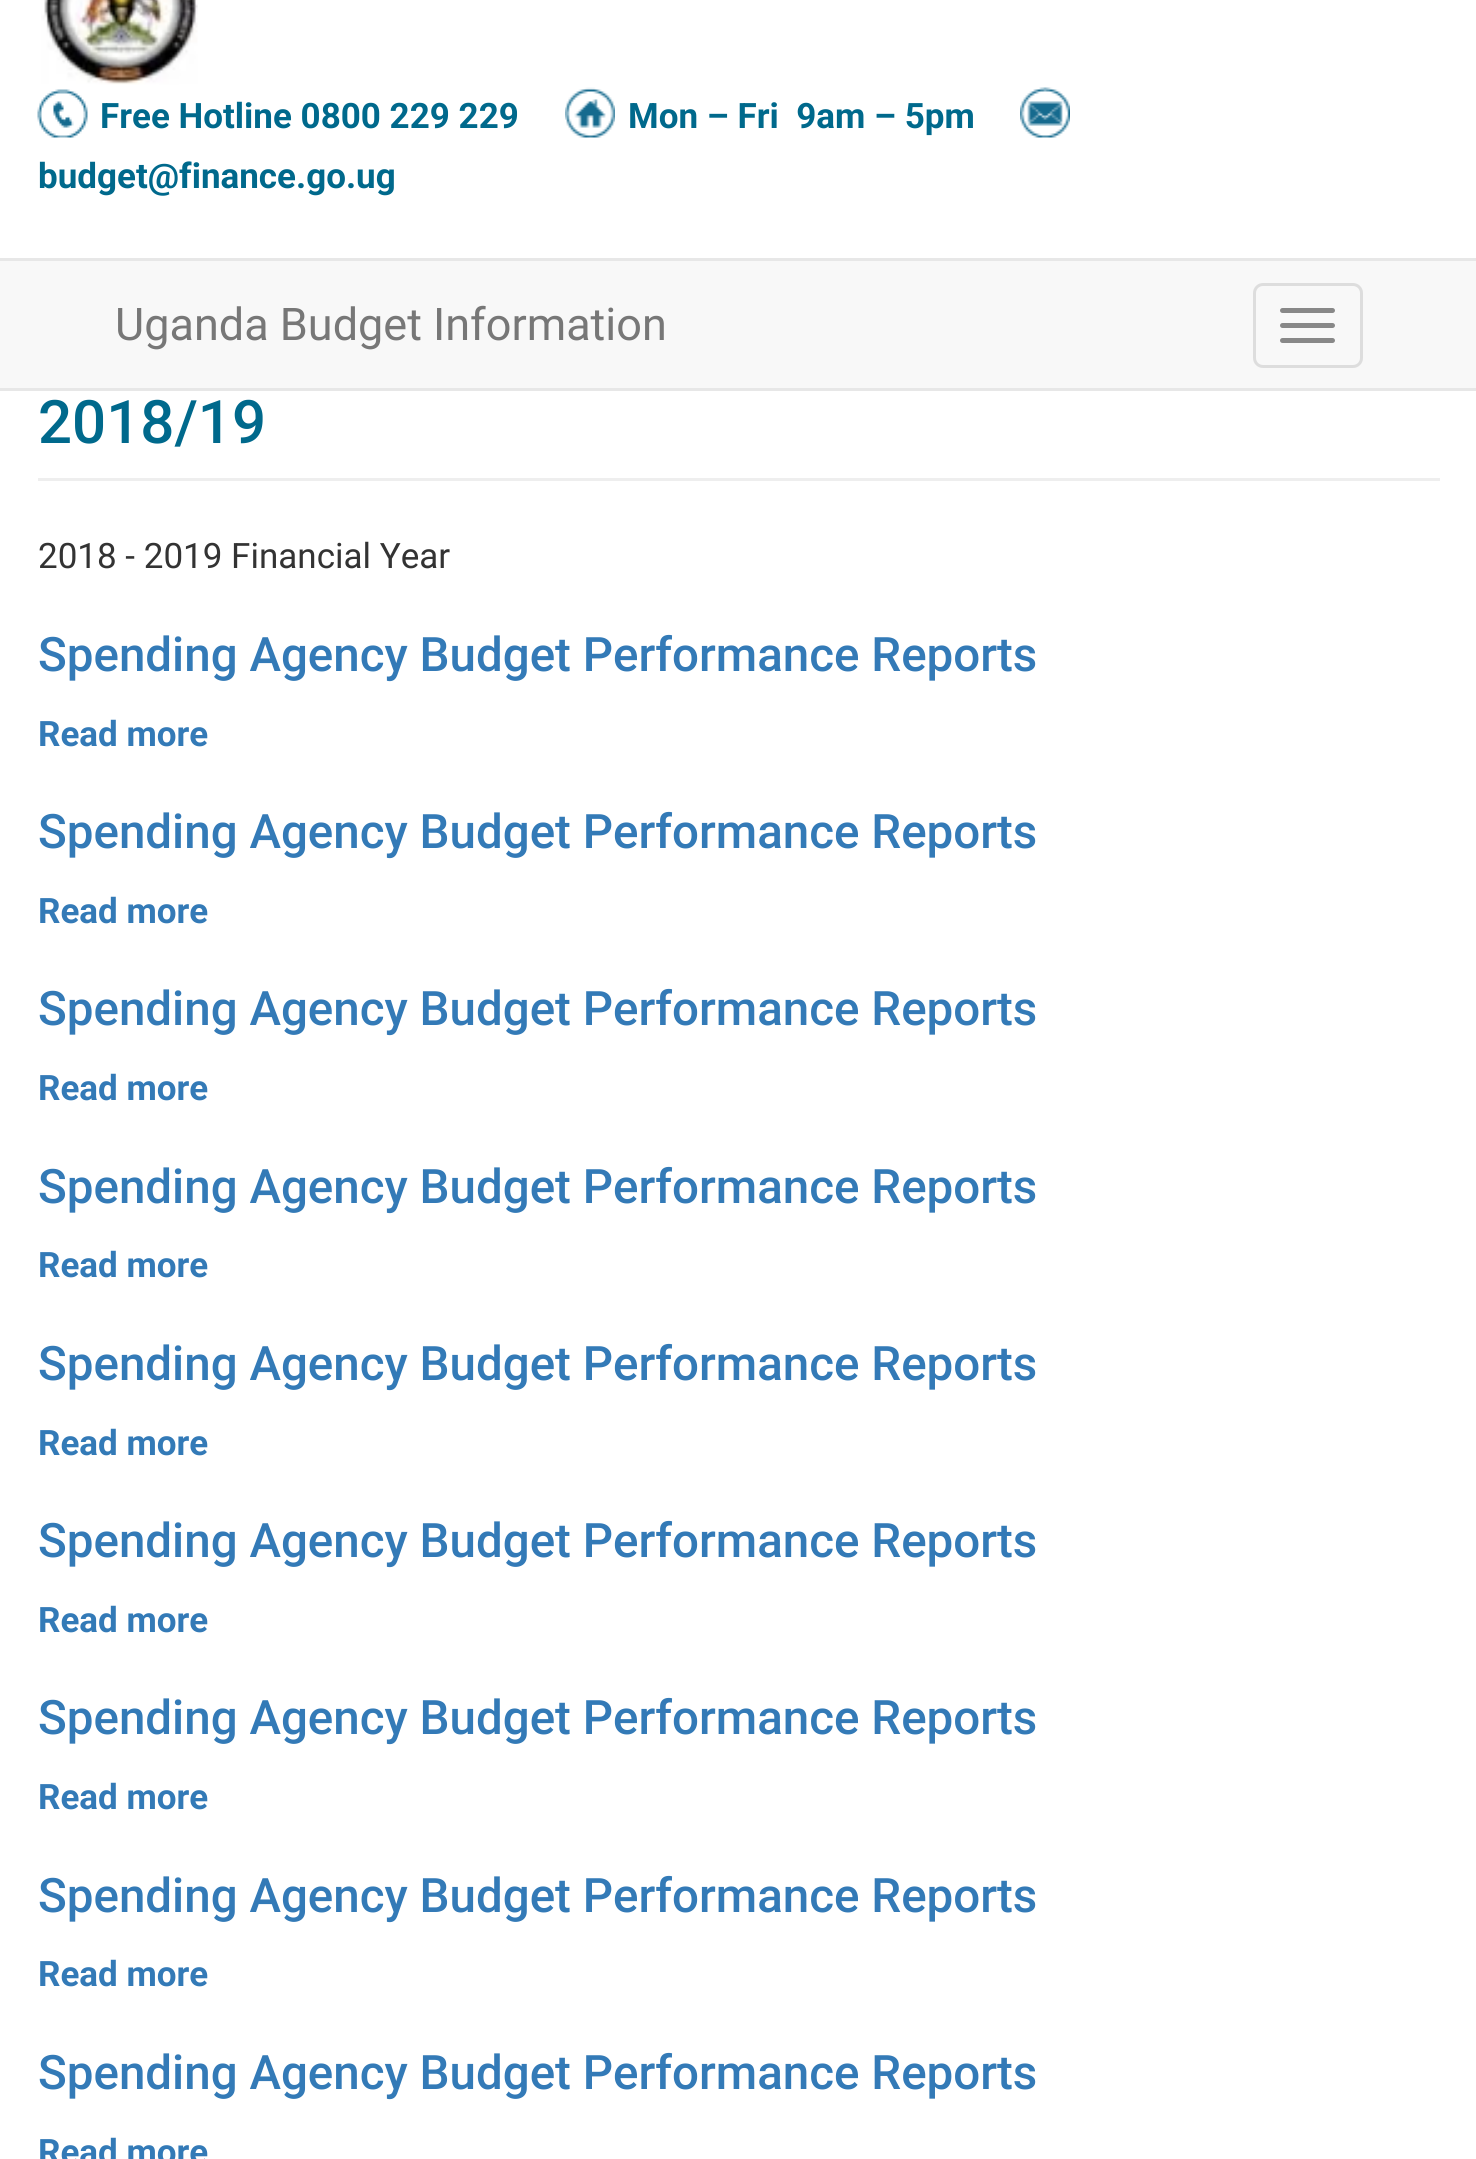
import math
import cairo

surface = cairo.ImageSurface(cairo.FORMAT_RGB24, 1476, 2159)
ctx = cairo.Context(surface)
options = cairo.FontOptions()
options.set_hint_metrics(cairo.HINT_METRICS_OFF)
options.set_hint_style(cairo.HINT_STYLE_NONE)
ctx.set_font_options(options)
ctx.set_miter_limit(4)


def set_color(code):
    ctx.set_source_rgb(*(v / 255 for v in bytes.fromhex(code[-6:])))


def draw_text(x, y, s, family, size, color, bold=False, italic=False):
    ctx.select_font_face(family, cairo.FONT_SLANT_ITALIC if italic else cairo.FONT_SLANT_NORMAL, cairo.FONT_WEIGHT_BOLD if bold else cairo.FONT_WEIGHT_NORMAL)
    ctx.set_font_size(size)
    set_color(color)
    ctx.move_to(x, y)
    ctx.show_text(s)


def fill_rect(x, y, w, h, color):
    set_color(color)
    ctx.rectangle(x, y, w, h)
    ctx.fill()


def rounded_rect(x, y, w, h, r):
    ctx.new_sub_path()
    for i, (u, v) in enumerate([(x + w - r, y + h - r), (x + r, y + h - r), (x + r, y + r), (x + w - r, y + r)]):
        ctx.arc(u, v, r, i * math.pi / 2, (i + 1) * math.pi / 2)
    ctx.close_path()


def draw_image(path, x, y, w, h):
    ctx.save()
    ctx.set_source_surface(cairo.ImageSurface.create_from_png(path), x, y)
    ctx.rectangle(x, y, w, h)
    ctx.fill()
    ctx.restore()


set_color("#ffffff")
ctx.paint()
draw_image("assets/img1.png", 41, 0, 157, 85)
draw_image("assets/img2.png", 37, 89, 51, 49)
draw_text(100, 128, "Free Hotline 0800 229 229", "Roboto", 35, "#00698c", bold=True)
draw_image("assets/img3.png", 565, 87, 50, 51)
draw_text(628, 128, "Mon – Fri  9am – 5pm", "Roboto", 35, "#00698c", bold=True)
draw_image("assets/img4.png", 1020, 87, 50, 51)
draw_text(38, 188, "budget@finance.go.ug", "Roboto", 35, "#00698c", bold=True)
fill_rect(0, 261, 1476, 127, "#f8f8f8")
fill_rect(0, 258, 1476, 3, "#e7e7e7")
fill_rect(0, 388, 1476, 3, "#e7e7e7")
draw_text(115, 340, "Uganda Budget Information", "Roboto", 45, "#777777")
rounded_rect(1254.5, 284.5, 107, 82, 8.5)
set_color("#dddddd")
ctx.set_line_width(3)
ctx.stroke()
set_color("#888888")
rounded_rect(1280, 308, 55, 5, 2.5)
ctx.fill()
rounded_rect(1280, 323, 55, 5, 2.5)
ctx.fill()
rounded_rect(1280, 338, 55, 5, 2.5)
ctx.fill()
fill_rect(38, 478, 1402, 3, "#eeeeee")
draw_text(38, 443, "2018/19", "Roboto Medium", 60, "#00698c")
draw_text(38, 568, "2018 - 2019 Financial Year", "Roboto", 35, "#333333")
draw_text(38, 671, "Spending Agency Budget Performance Reports", "Roboto Medium", 47.5, "#337ab7")
draw_text(38, 746, "Read more", "Roboto", 35, "#337ab7", bold=True)
draw_text(38, 848, "Spending Agency Budget Performance Reports", "Roboto Medium", 47.5, "#337ab7")
draw_text(38, 923, "Read more", "Roboto", 35, "#337ab7", bold=True)
draw_text(38, 1025, "Spending Agency Budget Performance Reports", "Roboto Medium", 47.5, "#337ab7")
draw_text(38, 1100, "Read more", "Roboto", 35, "#337ab7", bold=True)
draw_text(38, 1203, "Spending Agency Budget Performance Reports", "Roboto Medium", 47.5, "#337ab7")
draw_text(38, 1277, "Read more", "Roboto", 35, "#337ab7", bold=True)
draw_text(38, 1380, "Spending Agency Budget Performance Reports", "Roboto Medium", 47.5, "#337ab7")
draw_text(38, 1455, "Read more", "Roboto", 35, "#337ab7", bold=True)
draw_text(38, 1557, "Spending Agency Budget Performance Reports", "Roboto Medium", 47.5, "#337ab7")
draw_text(38, 1632, "Read more", "Roboto", 35, "#337ab7", bold=True)
draw_text(38, 1734, "Spending Agency Budget Performance Reports", "Roboto Medium", 47.5, "#337ab7")
draw_text(38, 1809, "Read more", "Roboto", 35, "#337ab7", bold=True)
draw_text(38, 1912, "Spending Agency Budget Performance Reports", "Roboto Medium", 47.5, "#337ab7")
draw_text(38, 1986, "Read more", "Roboto", 35, "#337ab7", bold=True)
draw_text(38, 2089, "Spending Agency Budget Performance Reports", "Roboto Medium", 47.5, "#337ab7")
draw_text(38, 2164, "Read more", "Roboto", 35, "#337ab7", bold=True)
surface.write_to_png("output.png")
